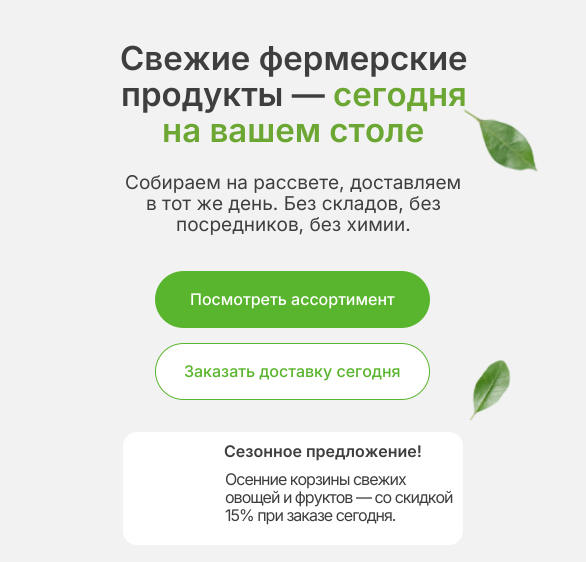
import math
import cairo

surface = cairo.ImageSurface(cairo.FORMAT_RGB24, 586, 562)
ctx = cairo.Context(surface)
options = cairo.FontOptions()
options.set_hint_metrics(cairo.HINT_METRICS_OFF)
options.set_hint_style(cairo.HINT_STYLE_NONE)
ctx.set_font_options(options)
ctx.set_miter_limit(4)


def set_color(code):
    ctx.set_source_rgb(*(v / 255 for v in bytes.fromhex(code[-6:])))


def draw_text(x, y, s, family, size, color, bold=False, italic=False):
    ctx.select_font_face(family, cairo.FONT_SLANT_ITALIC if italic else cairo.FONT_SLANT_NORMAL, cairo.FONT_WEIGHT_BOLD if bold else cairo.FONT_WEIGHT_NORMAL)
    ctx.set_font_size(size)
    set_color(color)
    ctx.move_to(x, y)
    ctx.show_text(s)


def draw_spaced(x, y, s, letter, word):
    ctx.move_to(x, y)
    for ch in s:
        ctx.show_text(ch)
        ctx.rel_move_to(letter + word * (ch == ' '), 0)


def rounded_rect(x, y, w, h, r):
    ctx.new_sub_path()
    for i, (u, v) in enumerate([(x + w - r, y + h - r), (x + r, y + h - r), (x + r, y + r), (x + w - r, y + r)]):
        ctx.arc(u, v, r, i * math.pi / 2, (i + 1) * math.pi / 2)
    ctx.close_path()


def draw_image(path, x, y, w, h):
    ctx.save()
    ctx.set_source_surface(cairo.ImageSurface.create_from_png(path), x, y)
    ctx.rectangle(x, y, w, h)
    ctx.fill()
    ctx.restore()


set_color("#f2f2f2")
ctx.paint()
draw_text(120, 70, "Свежие фермерские", "Inter SemiBold", 33, "#3e3e3e")
draw_text(121, 106, "продукты —", "Inter SemiBold", 33, "#3e3e3e")
draw_text(333, 106, "сегодня", "Inter SemiBold", 33, "#6ca633")
draw_text(162, 142, "на вашем столе", "Inter SemiBold", 33, "#6ca633")
draw_image("assets/img1.png", 463, 109, 75, 63)
draw_text(125, 189, "Собираем на рассвете, доставляем", "Inter", 19, "#3e3e3e")
draw_text(146, 210, "в тот же день. Без складов, без", "Inter", 19, "#3e3e3e")
draw_text(176, 231, "посредников, без химии.", "Inter", 19, "#3e3e3e")
set_color("#59b52d")
rounded_rect(155, 271, 275, 57, 28.5)
ctx.fill()
draw_text(190, 305, "Посмотреть ассортимент", "Inter Medium", 16, "#ffffff")
rounded_rect(155.5, 343.5, 274, 56, 28)
ctx.fill_preserve()
set_color("#59b52d")
ctx.set_line_width(1)
ctx.stroke()
draw_text(184, 377, "Заказать доставку сегодня", "Inter Medium", 16, "#59b52d")
draw_image("assets/img2.png", 469, 359, 42, 62)
set_color("#ffffff")
rounded_rect(123, 432, 340, 113, 14)
ctx.fill()
draw_text(224, 457, "Сезонное предложение!", "Inter SemiBold", 16, "#3e3e3e")
ctx.select_font_face("Inter")
draw_spaced(225, 485, "Осенние корзины свежих", -1, 0)
draw_spaced(225, 503, "овощей и фруктов — со скидкой", -1, 0)
draw_spaced(225, 521, "15% при заказе сегодня.", -1, 0)
surface.write_to_png("output.png")
